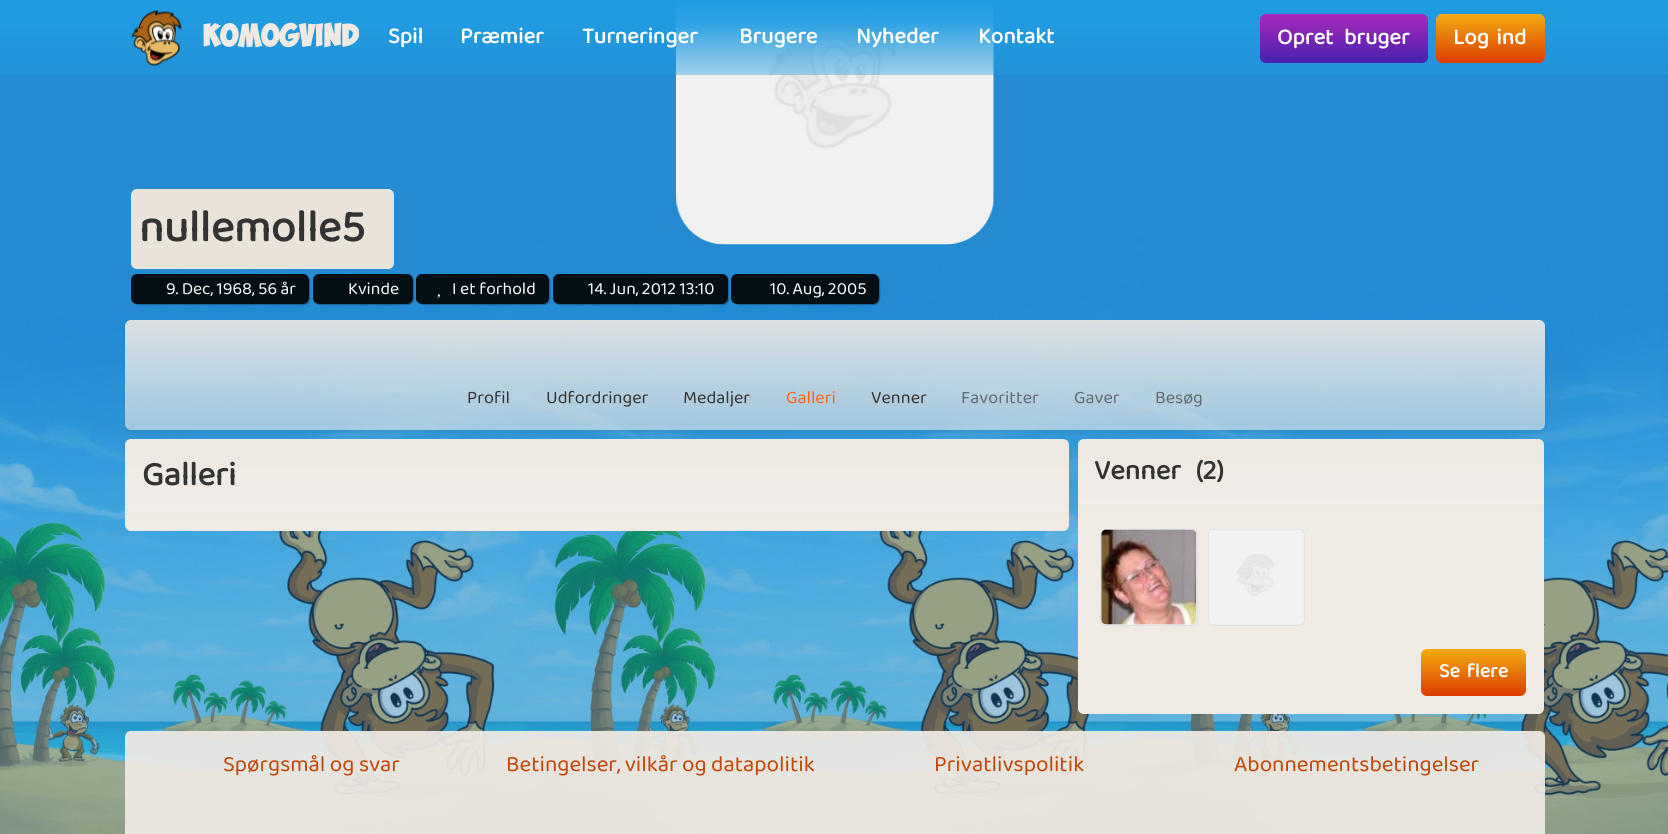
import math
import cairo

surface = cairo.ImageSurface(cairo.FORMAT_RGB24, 1668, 834)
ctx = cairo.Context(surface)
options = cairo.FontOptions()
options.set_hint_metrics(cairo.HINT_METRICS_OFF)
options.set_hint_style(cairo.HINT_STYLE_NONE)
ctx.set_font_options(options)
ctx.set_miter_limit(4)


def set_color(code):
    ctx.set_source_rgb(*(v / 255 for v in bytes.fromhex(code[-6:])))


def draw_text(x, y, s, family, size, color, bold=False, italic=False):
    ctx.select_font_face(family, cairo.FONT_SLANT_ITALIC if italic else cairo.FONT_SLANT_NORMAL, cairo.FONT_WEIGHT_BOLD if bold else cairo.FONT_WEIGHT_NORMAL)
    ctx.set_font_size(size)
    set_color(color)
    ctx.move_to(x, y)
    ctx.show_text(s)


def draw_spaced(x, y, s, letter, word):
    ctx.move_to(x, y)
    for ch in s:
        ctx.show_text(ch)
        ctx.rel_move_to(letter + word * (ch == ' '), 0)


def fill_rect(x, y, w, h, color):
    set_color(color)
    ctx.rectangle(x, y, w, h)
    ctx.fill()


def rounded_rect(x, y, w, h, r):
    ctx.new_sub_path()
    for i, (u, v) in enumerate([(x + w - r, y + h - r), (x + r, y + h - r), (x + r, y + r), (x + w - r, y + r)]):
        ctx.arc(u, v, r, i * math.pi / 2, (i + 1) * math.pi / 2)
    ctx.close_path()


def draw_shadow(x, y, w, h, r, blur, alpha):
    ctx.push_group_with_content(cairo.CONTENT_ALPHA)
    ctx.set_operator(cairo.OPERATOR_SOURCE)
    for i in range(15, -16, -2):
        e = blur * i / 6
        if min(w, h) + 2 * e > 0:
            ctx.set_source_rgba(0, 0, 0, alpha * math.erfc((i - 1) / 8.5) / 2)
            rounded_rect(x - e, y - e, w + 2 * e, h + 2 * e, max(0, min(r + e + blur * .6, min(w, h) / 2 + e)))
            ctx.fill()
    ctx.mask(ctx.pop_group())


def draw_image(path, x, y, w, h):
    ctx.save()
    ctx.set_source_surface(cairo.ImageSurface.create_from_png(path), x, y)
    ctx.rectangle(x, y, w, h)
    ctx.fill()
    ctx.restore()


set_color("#ffffff")
ctx.paint()
draw_image("assets/img1.png", 0, 2, 1668, 832)
draw_image("assets/img3.png", 676, 2, 318, 243)
gradient = cairo.LinearGradient(834, 0, 834, 75)
gradient.add_color_stop_rgba(0, 0.125, 0.612, 0.886, 1)
gradient.add_color_stop_rgba(0.3, 0.125, 0.612, 0.886, 0.93)
gradient.add_color_stop_rgba(1, 0.125, 0.612, 0.886, 0.4)
ctx.set_source(gradient)
ctx.rectangle(0, 0, 1668, 75)
ctx.fill()
draw_image("assets/img2.png", 131, 9, 51, 57)
draw_text(203, 47, "Komogvind", "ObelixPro", 22.5, "#efeae4", bold=True)
draw_text(388, 43, "Spil", "Baloo 2", 22.5, "#ffffff", bold=True)
draw_text(460, 43, "Præmier", "Baloo 2", 22.5, "#ffffff", bold=True)
draw_text(582, 43, "Turneringer", "Baloo 2", 22.5, "#ffffff", bold=True)
draw_text(739, 43, "Brugere", "Baloo 2", 22.5, "#ffffff", bold=True)
draw_text(856, 43, "Nyheder", "Baloo 2", 22.5, "#ffffff", bold=True)
draw_text(978, 43, "Kontakt", "Baloo 2", 22.5, "#ffffff", bold=True)
gradient = cairo.LinearGradient(1344, 63, 1344, 14)
gradient.add_color_stop_rgba(0, 0.271, 0.133, 0.675, 1)
gradient.add_color_stop_rgba(1, 0.667, 0.157, 0.741, 1)
ctx.set_source(gradient)
rounded_rect(1260, 14, 168, 49, 6)
ctx.fill()
set_color("#ffffff")
draw_spaced(1277, 44, "Opret bruger", 0, 6)
gradient = cairo.LinearGradient(1491, 14, 1491, 63)
gradient.add_color_stop_rgba(0, 0.953, 0.675, 0.071, 1)
gradient.add_color_stop_rgba(1, 0.863, 0.235, 0, 1)
ctx.set_source(gradient)
rounded_rect(1436, 14, 109, 49, 6)
ctx.fill()
set_color("#ffffff")
draw_spaced(1453, 44, "Log ind", 0, 3)
set_color("#e9e3da")
rounded_rect(131, 189, 263, 80, 6)
ctx.fill()
draw_text(139, 241, "nullemolle5", "Baloo 2", 45, "#333333", bold=True)
ctx.save()
ctx.set_fill_rule(cairo.FILL_RULE_EVEN_ODD)
ctx.new_path()
ctx.move_to(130, 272)
ctx.line_to(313, 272)
ctx.line_to(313, 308)
ctx.line_to(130, 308)
ctx.close_path()
ctx.move_to(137, 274)
ctx.line_to(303, 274)
ctx.curve_to(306.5, 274, 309, 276.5, 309, 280)
ctx.line_to(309, 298)
ctx.curve_to(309, 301.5, 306.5, 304, 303, 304)
ctx.line_to(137, 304)
ctx.curve_to(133.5, 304, 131, 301.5, 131, 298)
ctx.line_to(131, 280)
ctx.curve_to(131, 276.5, 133.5, 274, 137, 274)
ctx.close_path()
ctx.clip()
set_color("#000000")
draw_shadow(133, 275, 177, 30, 6, 0.5, 0.3)
ctx.restore()
ctx.set_source_rgba(0, 0, 0, 0.9)
rounded_rect(131, 274, 178, 30, 6)
ctx.fill()
draw_text(166, 294, "9. Dec, 1968, 56 år", "Baloo 2", 17.5, "#ffffff")
ctx.save()
ctx.set_fill_rule(cairo.FILL_RULE_EVEN_ODD)
ctx.new_path()
ctx.move_to(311, 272)
ctx.line_to(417, 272)
ctx.line_to(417, 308)
ctx.line_to(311, 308)
ctx.close_path()
ctx.move_to(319, 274)
ctx.line_to(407, 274)
ctx.curve_to(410.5, 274, 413, 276.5, 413, 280)
ctx.line_to(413, 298)
ctx.curve_to(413, 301.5, 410.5, 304, 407, 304)
ctx.line_to(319, 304)
ctx.curve_to(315.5, 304, 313, 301.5, 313, 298)
ctx.line_to(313, 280)
ctx.curve_to(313, 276.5, 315.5, 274, 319, 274)
ctx.close_path()
ctx.clip()
set_color("#000000")
draw_shadow(314, 275, 100, 30, 6, 0.5, 0.3)
ctx.restore()
ctx.set_source_rgba(0, 0, 0, 0.9)
rounded_rect(313, 274, 100, 30, 6)
ctx.fill()
draw_text(348, 294, "Kvinde", "Baloo 2", 17.5, "#ffffff")
ctx.save()
ctx.set_fill_rule(cairo.FILL_RULE_EVEN_ODD)
ctx.new_path()
ctx.move_to(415, 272)
ctx.line_to(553, 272)
ctx.line_to(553, 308)
ctx.line_to(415, 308)
ctx.close_path()
ctx.move_to(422, 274)
ctx.line_to(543, 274)
ctx.curve_to(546.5, 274, 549, 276.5, 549, 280)
ctx.line_to(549, 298)
ctx.curve_to(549, 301.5, 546.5, 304, 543, 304)
ctx.line_to(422, 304)
ctx.curve_to(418.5, 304, 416, 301.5, 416, 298)
ctx.line_to(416, 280)
ctx.curve_to(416, 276.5, 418.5, 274, 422, 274)
ctx.close_path()
ctx.clip()
set_color("#000000")
draw_shadow(418, 275, 132, 30, 6, 0.5, 0.3)
ctx.restore()
ctx.set_source_rgba(0, 0, 0, 0.9)
rounded_rect(416, 274, 133, 30, 6)
ctx.fill()
draw_text(452, 294, "I et forhold", "Baloo 2", 17.5, "#ffffff")
draw_image("assets/img4.png", 437, 294, 3, 4)
ctx.save()
ctx.set_fill_rule(cairo.FILL_RULE_EVEN_ODD)
ctx.new_path()
ctx.move_to(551, 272)
ctx.line_to(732, 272)
ctx.line_to(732, 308)
ctx.line_to(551, 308)
ctx.close_path()
ctx.move_to(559, 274)
ctx.line_to(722, 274)
ctx.curve_to(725.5, 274, 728, 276.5, 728, 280)
ctx.line_to(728, 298)
ctx.curve_to(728, 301.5, 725.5, 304, 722, 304)
ctx.line_to(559, 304)
ctx.curve_to(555.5, 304, 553, 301.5, 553, 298)
ctx.line_to(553, 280)
ctx.curve_to(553, 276.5, 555.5, 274, 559, 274)
ctx.close_path()
ctx.clip()
set_color("#000000")
draw_shadow(554, 275, 175, 30, 6, 0.5, 0.3)
ctx.restore()
ctx.set_source_rgba(0, 0, 0, 0.9)
rounded_rect(553, 274, 175, 30, 6)
ctx.fill()
draw_text(588, 294, "14. Jun, 2012 13:10", "Baloo 2", 17.5, "#ffffff")
ctx.save()
ctx.set_fill_rule(cairo.FILL_RULE_EVEN_ODD)
ctx.new_path()
ctx.move_to(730, 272)
ctx.line_to(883, 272)
ctx.line_to(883, 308)
ctx.line_to(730, 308)
ctx.close_path()
ctx.move_to(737, 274)
ctx.line_to(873, 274)
ctx.curve_to(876.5, 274, 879, 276.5, 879, 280)
ctx.line_to(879, 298)
ctx.curve_to(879, 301.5, 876.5, 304, 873, 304)
ctx.line_to(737, 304)
ctx.curve_to(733.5, 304, 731, 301.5, 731, 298)
ctx.line_to(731, 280)
ctx.curve_to(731, 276.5, 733.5, 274, 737, 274)
ctx.close_path()
ctx.clip()
set_color("#000000")
draw_shadow(733, 275, 147, 30, 6, 0.5, 0.3)
ctx.restore()
ctx.set_source_rgba(0, 0, 0, 0.9)
rounded_rect(731, 274, 148, 30, 6)
ctx.fill()
draw_text(770, 294, "10. Aug, 2005", "Baloo 2", 17.5, "#ffffff")
ctx.save()
ctx.set_fill_rule(cairo.FILL_RULE_EVEN_ODD)
ctx.new_path()
ctx.move_to(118, 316)
ctx.line_to(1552, 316)
ctx.line_to(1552, 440)
ctx.line_to(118, 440)
ctx.close_path()
ctx.move_to(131, 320)
ctx.line_to(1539, 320)
ctx.curve_to(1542.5, 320, 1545, 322.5, 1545, 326)
ctx.line_to(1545, 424)
ctx.curve_to(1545, 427.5, 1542.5, 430, 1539, 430)
ctx.line_to(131, 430)
ctx.curve_to(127.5, 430, 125, 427.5, 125, 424)
ctx.line_to(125, 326)
ctx.curve_to(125, 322.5, 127.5, 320, 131, 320)
ctx.close_path()
ctx.clip()
set_color("#000000")
draw_shadow(125, 323, 1420, 110, 6, 2, 0.07)
ctx.restore()
gradient = cairo.LinearGradient(835, 320, 835, 430)
gradient.add_color_stop_rgba(0, 0.937, 0.918, 0.894, 0.9)
gradient.add_color_stop_rgba(1, 0.937, 0.918, 0.894, 0.6)
ctx.set_source(gradient)
rounded_rect(125, 320, 1420, 110, 6)
ctx.fill()
draw_text(467, 403, "Profil", "Baloo 2", 18, "#333333")
draw_text(546, 403, "Udfordringer", "Baloo 2", 18, "#333333")
draw_text(683, 403, "Medaljer", "Baloo 2", 18, "#333333")
draw_text(786, 403, "Galleri", "Baloo 2", 18, "#ff6310")
draw_text(871, 403, "Venner", "Baloo 2", 18, "#333333")
draw_text(961, 403, "Favoritter", "Baloo 2", 18, "#606a70")
draw_text(1074, 403, "Gaver", "Baloo 2", 18, "#606a70")
draw_text(1155, 403, "Besøg", "Baloo 2", 18, "#606a70")
gradient = cairo.LinearGradient(597, 439, 597, 513)
gradient.add_color_stop_rgba(0, 0.929, 0.91, 0.882, 1)
gradient.add_color_stop_rgba(1, 0.945, 0.925, 0.906, 1)
ctx.set_source(gradient)
ctx.new_path()
ctx.move_to(131, 439)
ctx.line_to(1063, 439)
ctx.curve_to(1066.5, 439, 1069, 441.5, 1069, 445)
ctx.line_to(1069, 513)
ctx.line_to(125, 513)
ctx.line_to(125, 445)
ctx.curve_to(125, 441.5, 127.5, 439, 131, 439)
ctx.close_path()
ctx.fill()
fill_rect(125, 513, 944, 1, "#e9e3da")
draw_text(142, 485, "Galleri", "Baloo 2", 34, "#333333", bold=True)
set_color("#efeae4")
ctx.new_path()
ctx.move_to(125, 514)
ctx.line_to(1069, 514)
ctx.line_to(1069, 525)
ctx.curve_to(1069, 528.5, 1066.5, 531, 1063, 531)
ctx.line_to(131, 531)
ctx.curve_to(127.5, 531, 125, 528.5, 125, 525)
ctx.close_path()
ctx.fill()
gradient = cairo.LinearGradient(1311, 439, 1311, 505)
gradient.add_color_stop_rgba(0, 0.929, 0.91, 0.882, 1)
gradient.add_color_stop_rgba(1, 0.945, 0.925, 0.906, 1)
ctx.set_source(gradient)
ctx.new_path()
ctx.move_to(1084, 439)
ctx.line_to(1538, 439)
ctx.curve_to(1541.5, 439, 1544, 441.5, 1544, 445)
ctx.line_to(1544, 505)
ctx.line_to(1078, 505)
ctx.line_to(1078, 445)
ctx.curve_to(1078, 441.5, 1080.5, 439, 1084, 439)
ctx.close_path()
ctx.fill()
fill_rect(1078, 505, 466, 1, "#e9e3da")
ctx.set_font_size(28)
set_color("#333333")
draw_spaced(1094, 479, "Venner (2)", 0, 9)
set_color("#efeae4")
ctx.new_path()
ctx.move_to(1078, 506)
ctx.line_to(1544, 506)
ctx.line_to(1544, 708)
ctx.curve_to(1544, 711.5, 1541.5, 714, 1538, 714)
ctx.line_to(1084, 714)
ctx.curve_to(1080.5, 714, 1078, 711.5, 1078, 708)
ctx.close_path()
ctx.fill()
rounded_rect(1100.5, 529.5, 97, 96, 5.5)
set_color("#dee2e6")
ctx.set_line_width(1)
ctx.stroke()
draw_image("assets/img5.png", 1101, 529, 96, 96)
rounded_rect(1208.5, 529.5, 96, 96, 5.5)
ctx.stroke()
draw_image("assets/img6.png", 1209, 529, 95, 95)
gradient = cairo.LinearGradient(1474, 649, 1474, 696)
gradient.add_color_stop_rgba(0, 0.953, 0.675, 0.071, 1)
gradient.add_color_stop_rgba(1, 0.863, 0.235, 0, 1)
ctx.set_source(gradient)
rounded_rect(1421, 649, 105, 47, 6)
ctx.fill()
ctx.set_font_size(20)
set_color("#ffffff")
draw_spaced(1439, 677, "Se flere", 0, 3)
ctx.set_source_rgba(0.937, 0.918, 0.894, 0.93)
ctx.new_path()
ctx.move_to(131, 731)
ctx.line_to(1539, 731)
ctx.curve_to(1542.5, 731, 1545, 733.5, 1545, 737)
ctx.line_to(1545, 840)
ctx.line_to(125, 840)
ctx.line_to(125, 737)
ctx.curve_to(125, 733.5, 127.5, 731, 131, 731)
ctx.close_path()
ctx.fill()
draw_text(223, 771, "Spørgsmål og svar", "Baloo 2", 22.5, "#c24400")
draw_text(506, 771, "Betingelser, vilkår og datapolitik", "Baloo 2", 22.5, "#c24400")
draw_text(934, 771, "Privatlivspolitik", "Baloo 2", 22.5, "#c24400")
draw_text(1234, 771, "Abonnementsbetingelser", "Baloo 2", 22.5, "#c24400")
surface.write_to_png("output.png")
